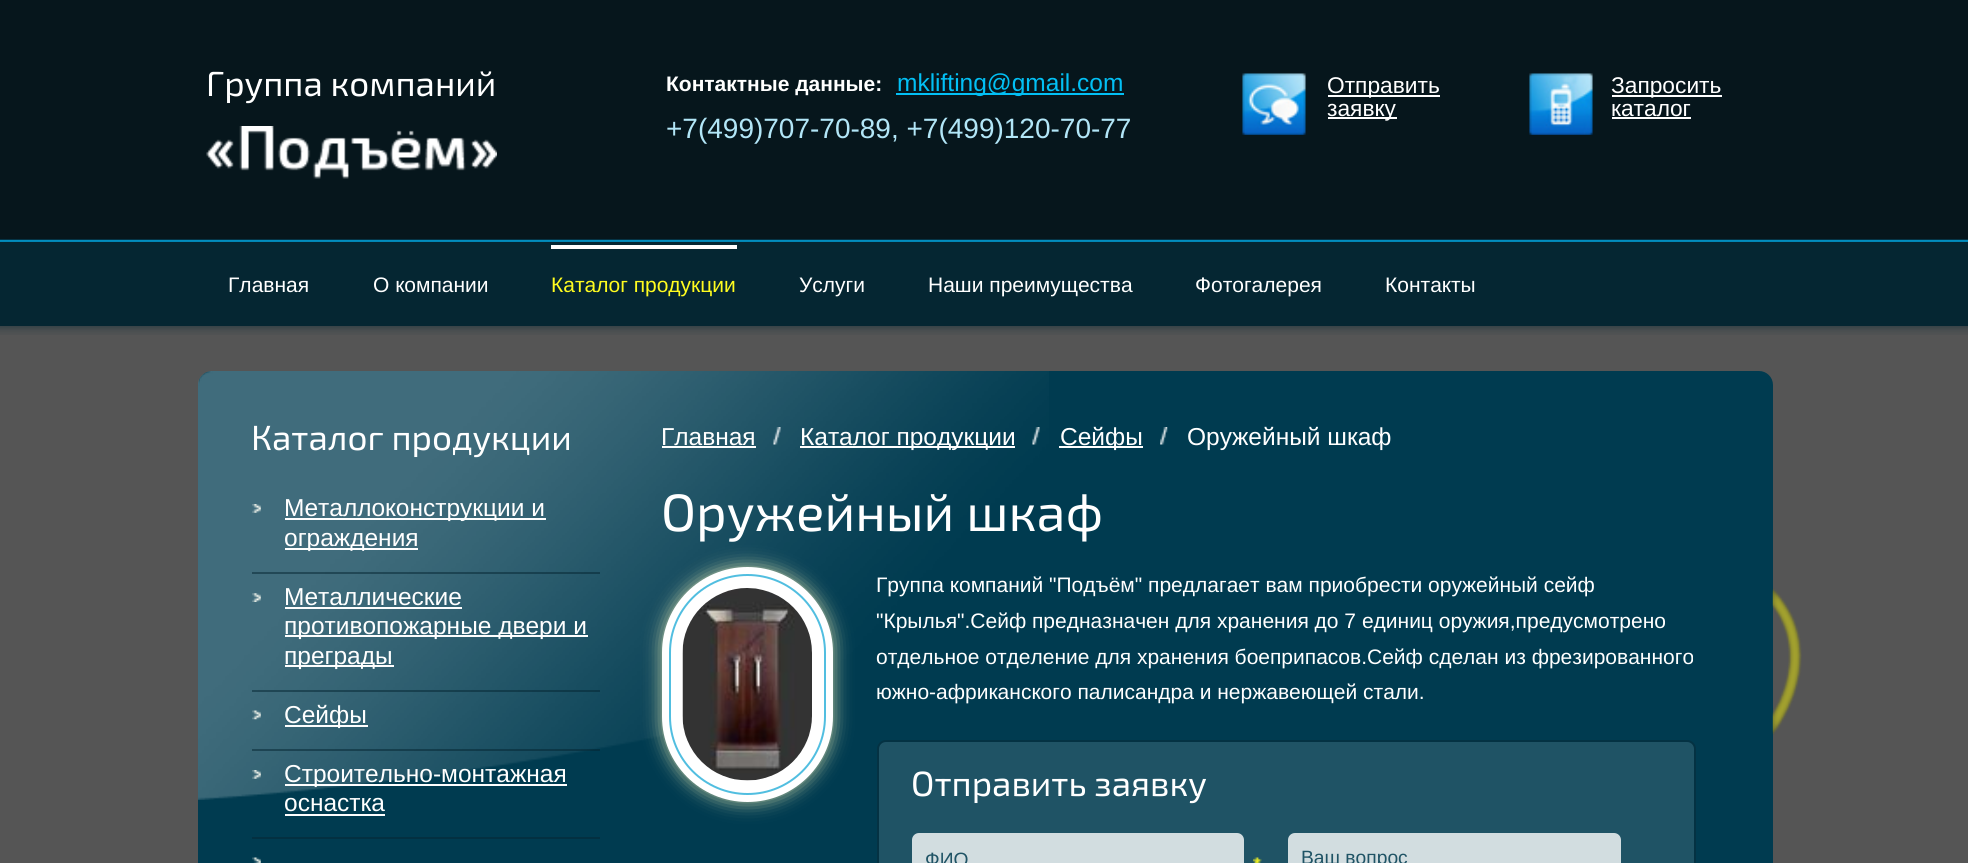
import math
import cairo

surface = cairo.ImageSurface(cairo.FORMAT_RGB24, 1968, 863)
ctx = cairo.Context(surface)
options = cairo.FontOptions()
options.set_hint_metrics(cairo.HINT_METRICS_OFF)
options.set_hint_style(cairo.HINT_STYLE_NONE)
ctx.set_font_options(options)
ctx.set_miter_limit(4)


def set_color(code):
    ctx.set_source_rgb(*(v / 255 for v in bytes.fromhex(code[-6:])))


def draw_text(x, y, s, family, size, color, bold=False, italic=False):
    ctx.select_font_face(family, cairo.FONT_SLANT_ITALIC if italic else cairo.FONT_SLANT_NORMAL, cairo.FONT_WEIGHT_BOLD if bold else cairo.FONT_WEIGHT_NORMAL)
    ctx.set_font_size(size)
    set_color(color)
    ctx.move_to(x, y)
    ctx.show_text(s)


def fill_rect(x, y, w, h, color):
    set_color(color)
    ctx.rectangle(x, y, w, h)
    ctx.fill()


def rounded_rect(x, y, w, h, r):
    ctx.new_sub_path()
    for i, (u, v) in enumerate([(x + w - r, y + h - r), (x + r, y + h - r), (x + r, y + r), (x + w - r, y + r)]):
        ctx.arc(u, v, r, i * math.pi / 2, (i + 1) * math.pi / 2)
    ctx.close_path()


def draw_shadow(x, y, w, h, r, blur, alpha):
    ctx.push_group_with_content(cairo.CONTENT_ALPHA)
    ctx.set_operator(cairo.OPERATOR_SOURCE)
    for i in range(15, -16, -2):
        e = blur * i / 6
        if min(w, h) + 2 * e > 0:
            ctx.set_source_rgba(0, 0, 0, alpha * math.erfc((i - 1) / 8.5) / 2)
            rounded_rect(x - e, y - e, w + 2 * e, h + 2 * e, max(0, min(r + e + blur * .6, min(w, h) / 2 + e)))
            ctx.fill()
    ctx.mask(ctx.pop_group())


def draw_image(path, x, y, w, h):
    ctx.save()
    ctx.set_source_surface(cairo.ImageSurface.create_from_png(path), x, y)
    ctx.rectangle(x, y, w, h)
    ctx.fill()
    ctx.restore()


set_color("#555555")
ctx.paint()
fill_rect(0, 0, 1968, 240, "#06161c")
draw_image("assets/img1.png", 0, 239, 1968, 3)
draw_text(206, 96, "Группа компаний", "Exo 2", 35, "#ffffff")
draw_text(666, 91, "Контактные данные:", "Liberation Sans", 21, "#ffffff", bold=True)
fill_rect(896, 93, 228, 2, "#02c0f5")
draw_text(897, 91, "mklifting@gmail.com", "Liberation Sans", 24.5, "#02c0f5")
draw_text(666, 138, "+7(499)707-70-89, +7(499)120-70-77", "Liberation Sans", 28, "#b2e6f7")
draw_image("assets/img2.png", 1242, 73, 64, 62)
fill_rect(1328, 95, 112, 2, "#ffffff")
draw_text(1327, 93, "Отправить", "Liberation Sans", 22.75, "#ffffff")
fill_rect(1328, 117, 69, 2, "#ffffff")
draw_text(1327, 116, "заявку", "Liberation Sans", 22.75, "#ffffff")
draw_image("assets/img3.png", 1529, 73, 64, 62)
fill_rect(1612, 95, 110, 2, "#ffffff")
draw_text(1611, 93, "Запросить", "Liberation Sans", 22.75, "#ffffff")
draw_text(1611, 116, "каталог", "Liberation Sans", 22.75, "#ffffff")
fill_rect(1612, 117, 79, 2, "#ffffff")
draw_image("assets/img4.png", 206, 126, 291, 53)
fill_rect(0, 242, 1968, 84, "#052632")
draw_text(228, 292, "Главная", "Liberation Sans", 21, "#ffffff")
draw_text(373, 292, "О компании", "Liberation Sans", 21, "#ffffff")
fill_rect(551, 245, 186, 4, "#ffffff")
draw_text(551, 292, "Каталог продукции", "Liberation Sans", 21, "#fffc1f")
draw_text(799, 292, "Услуги", "Liberation Sans", 21, "#ffffff")
draw_text(928, 292, "Наши преимущества", "Liberation Sans", 21, "#ffffff")
draw_text(1195, 292, "Фотогалерея", "Liberation Sans", 21, "#ffffff")
draw_text(1385, 292, "Контакты", "Liberation Sans", 21, "#ffffff")
draw_image("assets/img5.png", 0, 326, 1968, 9)
set_color("#003b50")
rounded_rect(198, 371, 1575, 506, 14)
ctx.fill()
draw_image("assets/img16.png", 198, 371, 851, 429)
draw_text(251, 450, "Каталог продукции", "Exo 2", 35, "#ffffff")
draw_image("assets/img6.png", 252, 504, 9, 9)
ctx.set_source_rgba(0.02, 0.145, 0.192, 0.5)
ctx.rectangle(252, 572, 348, 2)
ctx.fill()
fill_rect(285, 518, 261, 2, "#fefefe")
draw_text(284, 516, "Металлоконструкции и", "Liberation Sans", 24.5, "#ffffff")
fill_rect(285, 548, 133, 2, "#fefefe")
draw_text(284, 546, "ограждения", "Liberation Sans", 24.5, "#ffffff")
draw_image("assets/img7.png", 252, 593, 9, 9)
ctx.set_source_rgba(0.02, 0.145, 0.192, 0.5)
ctx.rectangle(252, 690, 348, 2)
ctx.fill()
draw_text(284, 605, "Металлические", "Liberation Sans", 24.5, "#ffffff")
fill_rect(285, 607, 177, 2, "#fefefe")
fill_rect(285, 635, 303, 2, "#fefefe")
draw_text(284, 634, "противопожарные двери и", "Liberation Sans", 24.5, "#ffffff")
fill_rect(285, 665, 109, 2, "#fefefe")
draw_text(284, 664, "преграды", "Liberation Sans", 24.5, "#ffffff")
draw_image("assets/img8.png", 252, 710, 9, 10)
ctx.set_source_rgba(0.02, 0.145, 0.192, 0.5)
ctx.rectangle(252, 749, 348, 2)
ctx.fill()
fill_rect(285, 725, 83, 2, "#fefefe")
draw_text(284, 723, "Сейфы", "Liberation Sans", 24.5, "#ffffff")
draw_image("assets/img9.png", 252, 770, 9, 9)
fill_rect(252, 837, 348, 2, "#033041")
fill_rect(285, 784, 282, 2, "#fefefe")
draw_text(284, 782, "Строительно-монтажная", "Liberation Sans", 24.5, "#ffffff")
draw_text(284, 811, "оснастка", "Liberation Sans", 24.5, "#ffffff")
fill_rect(285, 814, 100, 2, "#fefefe")
draw_image("assets/img10.png", 252, 857, 9, 6)
draw_text(661, 445, "Главная", "Liberation Sans", 24.5, "#ffffff")
fill_rect(662, 446, 94, 2, "#ffffff")
draw_image("assets/img11.png", 773, 427, 8, 18)
fill_rect(800, 446, 215, 2, "#ffffff")
draw_text(800, 445, "Каталог продукции", "Liberation Sans", 24.5, "#ffffff")
draw_image("assets/img12.png", 1032, 427, 8, 18)
fill_rect(1059, 446, 84, 2, "#ffffff")
draw_text(1060, 445, "Сейфы", "Liberation Sans", 24.5, "#ffffff")
draw_image("assets/img13.png", 1160, 427, 8, 18)
draw_text(1187, 445, "Оружейный шкаф", "Liberation Sans", 24.5, "#ffffff")
set_color("#ffffbe")
draw_shadow(662, 567, 171, 235, 85.5, 9, 0.75)
draw_text(661, 531, "Оружейный шкаф", "Exo 2", 52.5, "#ffffff")
rounded_rect(662, 567, 171, 235, 85.5)
ctx.fill()
rounded_rect(670, 575, 155, 219, 77.5)
set_color("#51bee0")
ctx.stroke()
draw_image("assets/img14.png", 682, 588, 130, 193)
draw_text(876, 592, "Группа компаний \"Подъём\" предлагает вам приобрести оружейный сейф", "Liberation Sans", 21, "#ffffff")
draw_text(876, 628, "\"Крылья\".Сейф предназначен для хранения до 7 единиц оружия,предусмотрено", "Liberation Sans", 21, "#ffffff")
draw_text(876, 664, "отдельное отделение для хранения боеприпасов.Сейф сделан из фрезированного", "Liberation Sans", 21, "#ffffff")
draw_text(876, 699, "южно-африканского палисандра и нержавеющей стали.", "Liberation Sans", 21, "#ffffff")
set_color("#1f5365")
rounded_rect(878, 741, 817, 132, 8)
ctx.fill_preserve()
set_color("#043243")
ctx.stroke()
draw_text(911, 796, "Отправить заявку", "Exo 2", 35, "#ffffff")
set_color("#d2dde0")
rounded_rect(912, 833, 332, 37, 7)
ctx.fill()
draw_text(925, 866, "ФИО", "Liberation Sans", 19.25, "#1f5365")
draw_image("assets/img15.png", 1253, 857, 9, 6)
set_color("#d2dde0")
rounded_rect(1288, 833, 333, 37, 7)
ctx.fill()
draw_text(1301, 864, "Ваш вопрос", "Liberation Sans", 19.25, "#1f5365")
draw_image("assets/img17.png", 1772, 588, 30, 147)
surface.write_to_png("output.png")
